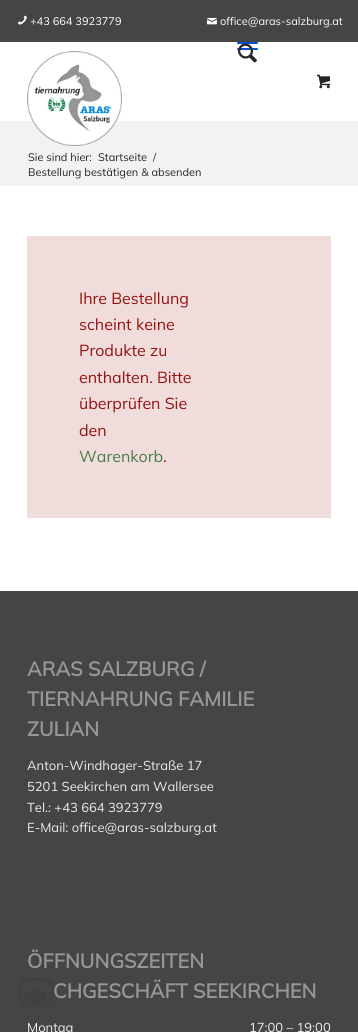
import math
import cairo

surface = cairo.ImageSurface(cairo.FORMAT_RGB24, 358, 1032)
ctx = cairo.Context(surface)
options = cairo.FontOptions()
options.set_hint_metrics(cairo.HINT_METRICS_OFF)
options.set_hint_style(cairo.HINT_STYLE_NONE)
ctx.set_font_options(options)
ctx.set_miter_limit(4)


def set_color(code):
    ctx.set_source_rgb(*(v / 255 for v in bytes.fromhex(code[-6:])))


def draw_text(x, y, s, family, size, color, bold=False, italic=False):
    ctx.select_font_face(family, cairo.FONT_SLANT_ITALIC if italic else cairo.FONT_SLANT_NORMAL, cairo.FONT_WEIGHT_BOLD if bold else cairo.FONT_WEIGHT_NORMAL)
    ctx.set_font_size(size)
    set_color(color)
    ctx.move_to(x, y)
    ctx.show_text(s)


def fill_rect(x, y, w, h, color):
    set_color(color)
    ctx.rectangle(x, y, w, h)
    ctx.fill()


def rounded_rect(x, y, w, h, r):
    ctx.new_sub_path()
    for i, (u, v) in enumerate([(x + w - r, y + h - r), (x + r, y + h - r), (x + r, y + r), (x + w - r, y + r)]):
        ctx.arc(u, v, r, i * math.pi / 2, (i + 1) * math.pi / 2)
    ctx.close_path()


def draw_image(path, x, y, w, h):
    ctx.save()
    ctx.set_source_surface(cairo.ImageSurface.create_from_png(path), x, y)
    ctx.rectangle(x, y, w, h)
    ctx.fill()
    ctx.restore()


set_color("#ffffff")
ctx.paint()
fill_rect(0, 0, 358, 42, "#454545")
draw_image("assets/img1.png", 18, 15, 9, 10)
draw_text(30, 25, "+43 664 3923779", "Mulish ExtraLight", 11, "#ffffff")
draw_image("assets/img2.png", 207, 17, 10, 8)
draw_text(220, 25, "office@aras-salzburg.at", "Mulish ExtraLight", 11, "#ffffff")
fill_rect(0, 121, 358, 65, "#f2f2f2")
draw_image("assets/img3.png", 27, 51, 95, 95)
set_color("#0052d5")
rounded_rect(237, 42, 21, 2, 1)
ctx.fill()
rounded_rect(237, 48, 21, 2, 1)
ctx.fill()
draw_image("assets/img4.png", 238, 43, 19, 20)
draw_image("assets/img5.png", 317, 74, 13, 15)
draw_text(28, 161, "Sie sind hier:", "Mulish ExtraLight", 11, "#252525")
draw_text(98, 161, "Startseite", "Mulish ExtraLight", 11, "#252525")
draw_text(153, 161, "/", "Mulish ExtraLight", 11, "#252525")
draw_text(28, 176, "Bestellung bestätigen & absenden", "Mulish ExtraLight", 11, "#252525")
fill_rect(27, 236, 304, 282, "#f0dcdb")
draw_text(79, 304, "Ihre Bestellung", "Mulish ExtraLight", 16, "#941210")
draw_text(79, 330, "scheint keine", "Mulish ExtraLight", 16, "#941210")
draw_text(79, 356, "Produkte zu", "Mulish ExtraLight", 16, "#941210")
draw_text(79, 383, "enthalten. Bitte", "Mulish ExtraLight", 16, "#941210")
draw_text(79, 409, "überprüfen Sie", "Mulish ExtraLight", 16, "#941210")
draw_text(79, 436, "den", "Mulish ExtraLight", 16, "#941210")
draw_text(79, 462, "Warenkorb", "Mulish ExtraLight", 16, "#4a7b48")
draw_text(163, 462, ".", "Mulish ExtraLight", 16, "#941210")
fill_rect(0, 591, 358, 441, "#454545")
draw_text(27, 676, "ARAS SALZBURG /", "Mulish", 20, "#969696", bold=True)
draw_text(27, 706, "TIERNAHRUNG FAMILIE", "Mulish", 20, "#969696", bold=True)
draw_text(27, 736, "ZULIAN", "Mulish", 20, "#969696", bold=True)
draw_text(27, 770, "Anton-Windhager-Straße 17", "Mulish ExtraLight", 13, "#ededea")
draw_text(27, 791, "5201 Seekirchen am Wallersee", "Mulish ExtraLight", 13, "#ededea")
draw_text(27, 812, "Tel.: +43 664 3923779", "Mulish ExtraLight", 13, "#ededea")
draw_text(27, 832, "E-Mail: office@aras-salzburg.at", "Mulish ExtraLight", 13, "#ededea")
draw_text(27, 968, "ÖFFNUNGSZEITEN", "Mulish", 20, "#969696", bold=True)
draw_text(53, 998, "CHGESCHÄFT SEEKIRCHEN", "Mulish", 20, "#969696", bold=True)
draw_text(27, 1032, "Montag", "Mulish ExtraLight", 13, "#ededea")
draw_text(249, 1032, "17:00 – 19:00", "Mulish ExtraLight", 13, "#ededea")
draw_image("assets/img6.png", 19, 978, 36, 29)
surface.write_to_png("output.png")
